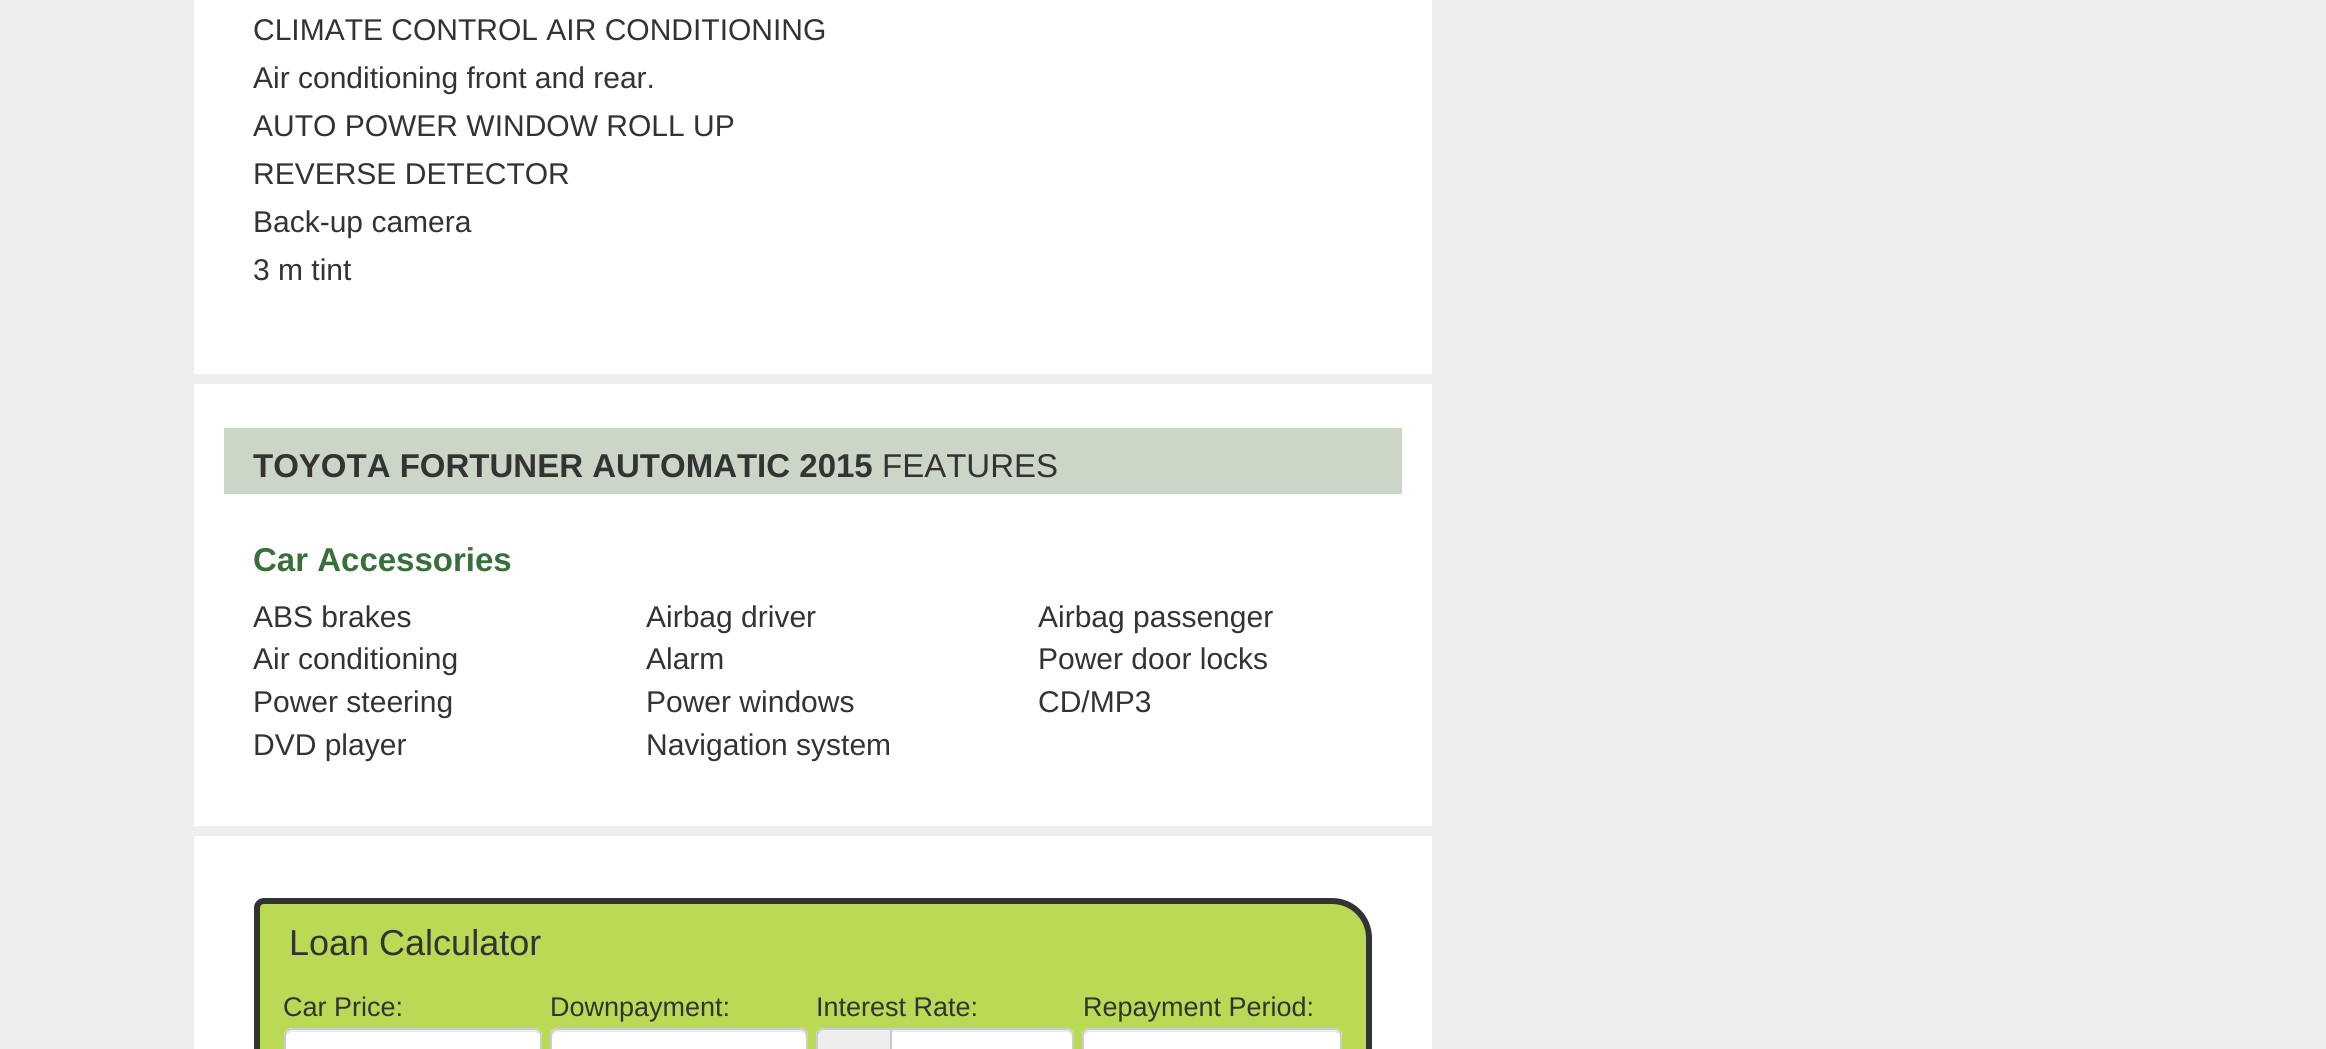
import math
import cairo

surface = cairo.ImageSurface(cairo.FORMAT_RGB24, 2326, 1049)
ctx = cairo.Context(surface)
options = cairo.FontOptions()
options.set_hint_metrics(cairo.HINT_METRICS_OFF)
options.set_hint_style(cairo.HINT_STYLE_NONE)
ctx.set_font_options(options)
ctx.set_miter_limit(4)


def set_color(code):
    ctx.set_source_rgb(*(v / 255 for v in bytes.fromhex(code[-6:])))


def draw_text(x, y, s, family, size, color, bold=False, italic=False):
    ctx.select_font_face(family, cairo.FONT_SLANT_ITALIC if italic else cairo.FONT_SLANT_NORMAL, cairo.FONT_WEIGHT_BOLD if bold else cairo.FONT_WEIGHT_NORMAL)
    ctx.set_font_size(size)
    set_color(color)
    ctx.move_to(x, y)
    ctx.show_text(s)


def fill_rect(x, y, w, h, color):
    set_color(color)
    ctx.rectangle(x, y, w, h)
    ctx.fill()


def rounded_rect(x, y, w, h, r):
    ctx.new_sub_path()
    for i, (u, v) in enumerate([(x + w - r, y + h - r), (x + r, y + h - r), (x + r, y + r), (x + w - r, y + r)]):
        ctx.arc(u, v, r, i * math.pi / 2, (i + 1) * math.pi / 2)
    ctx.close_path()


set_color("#eeeeee")
ctx.paint()
fill_rect(194, 0, 1238, 1049, "#ffffff")
draw_text(253, 40, "CLIMATE CONTROL AIR CONDITIONING", "Liberation Sans", 30, "#333333")
draw_text(253, 88, "Air conditioning front and rear.", "Liberation Sans", 30, "#333333")
draw_text(253, 136, "AUTO POWER WINDOW ROLL UP", "Liberation Sans", 30, "#333333")
draw_text(253, 184, "REVERSE DETECTOR", "Liberation Sans", 30, "#333333")
draw_text(253, 232, "Back-up camera", "Liberation Sans", 30, "#333333")
draw_text(253, 280, "3 m tint", "Liberation Sans", 30, "#333333")
fill_rect(194, 374, 1238, 10, "#eeeeee")
fill_rect(224, 428, 1178, 66, "#ccd6c7")
draw_text(253, 477, "TOYOTA FORTUNER AUTOMATIC 2015", "Liberation Sans", 33, "#333333", bold=True)
draw_text(882, 477, "FEATURES", "Liberation Sans", 33, "#333333")
draw_text(253, 571, "Car Accessories", "Liberation Sans", 33, "#396f3a", bold=True)
draw_text(253, 627, "ABS brakes", "Liberation Sans", 30, "#333333")
draw_text(646, 627, "Airbag driver", "Liberation Sans", 30, "#333333")
draw_text(1038, 627, "Airbag passenger", "Liberation Sans", 30, "#333333")
draw_text(253, 669, "Air conditioning", "Liberation Sans", 30, "#333333")
draw_text(646, 669, "Alarm", "Liberation Sans", 30, "#333333")
draw_text(1038, 669, "Power door locks", "Liberation Sans", 30, "#333333")
draw_text(253, 712, "Power steering", "Liberation Sans", 30, "#333333")
draw_text(646, 712, "Power windows", "Liberation Sans", 30, "#333333")
draw_text(1038, 712, "CD/MP3", "Liberation Sans", 30, "#333333")
draw_text(253, 755, "DVD player", "Liberation Sans", 30, "#333333")
draw_text(646, 755, "Navigation system", "Liberation Sans", 30, "#333333")
fill_rect(194, 826, 1238, 10, "#eeeeee")
set_color("#bada55")
ctx.new_path()
ctx.move_to(264, 901)
ctx.line_to(1332, 901)
ctx.curve_to(1352.5, 901, 1369, 917.5, 1369, 938)
ctx.line_to(1369, 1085)
ctx.curve_to(1369, 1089, 1366, 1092, 1362, 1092)
ctx.line_to(294, 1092)
ctx.curve_to(273.5, 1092, 257, 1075.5, 257, 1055)
ctx.line_to(257, 908)
ctx.curve_to(257, 904, 260, 901, 264, 901)
ctx.close_path()
ctx.fill_preserve()
set_color("#333333")
ctx.set_line_width(6)
ctx.stroke()
draw_text(289, 955, "Loan Calculator", "Liberation Sans", 36, "#333333")
draw_text(283, 1016, "Car Price:", "Liberation Sans", 27, "#333333")
set_color("#ffffff")
rounded_rect(284, 1028, 258, 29, 8)
ctx.fill()
set_color("#ececec")
ctx.new_path()
ctx.move_to(292, 1032)
ctx.line_to(534, 1032)
ctx.curve_to(537, 1032, 540, 1035, 540, 1038)
ctx.line_to(540, 1036)
ctx.curve_to(540, 1033, 537, 1030, 534, 1030)
ctx.line_to(292, 1030)
ctx.curve_to(289, 1030, 286, 1033, 286, 1036)
ctx.line_to(286, 1038)
ctx.curve_to(286, 1035, 289, 1032, 292, 1032)
ctx.close_path()
ctx.fill()
rounded_rect(285, 1029, 256, 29, 7)
set_color("#cccccc")
ctx.set_line_width(2)
ctx.stroke()
draw_text(550, 1016, "Downpayment:", "Liberation Sans", 27, "#333333")
set_color("#ffffff")
rounded_rect(550, 1028, 258, 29, 8)
ctx.fill()
set_color("#ececec")
ctx.new_path()
ctx.move_to(558, 1032)
ctx.line_to(800, 1032)
ctx.curve_to(803, 1032, 806, 1035, 806, 1038)
ctx.line_to(806, 1036)
ctx.curve_to(806, 1033, 803, 1030, 800, 1030)
ctx.line_to(558, 1030)
ctx.curve_to(555, 1030, 552, 1033, 552, 1036)
ctx.line_to(552, 1038)
ctx.curve_to(552, 1035, 555, 1032, 558, 1032)
ctx.close_path()
ctx.fill()
rounded_rect(551, 1029, 256, 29, 7)
set_color("#cccccc")
ctx.stroke()
draw_text(816, 1016, "Interest Rate:", "Liberation Sans", 27, "#333333")
set_color("#eeeeee")
ctx.new_path()
ctx.move_to(824, 1028)
ctx.line_to(890, 1028)
ctx.line_to(890, 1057)
ctx.line_to(824, 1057)
ctx.curve_to(819.5, 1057, 816, 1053.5, 816, 1049)
ctx.line_to(816, 1036)
ctx.curve_to(816, 1031.5, 819.5, 1028, 824, 1028)
ctx.close_path()
ctx.fill()
set_color("#cccccc")
ctx.set_fill_rule(cairo.FILL_RULE_EVEN_ODD)
ctx.new_path()
ctx.move_to(824, 1028)
ctx.line_to(890, 1028)
ctx.line_to(890, 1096)
ctx.line_to(824, 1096)
ctx.curve_to(820, 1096, 816, 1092, 816, 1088)
ctx.line_to(816, 1036)
ctx.curve_to(816, 1032, 820, 1028, 824, 1028)
ctx.close_path()
ctx.move_to(824, 1030)
ctx.line_to(890, 1030)
ctx.line_to(890, 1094)
ctx.line_to(824, 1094)
ctx.curve_to(821, 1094, 818, 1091, 818, 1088)
ctx.line_to(818, 1036)
ctx.curve_to(818, 1033, 821, 1030, 824, 1030)
ctx.close_path()
ctx.fill()
set_color("#ffffff")
ctx.new_path()
ctx.move_to(890, 1028)
ctx.line_to(1066, 1028)
ctx.curve_to(1070.5, 1028, 1074, 1031.5, 1074, 1036)
ctx.line_to(1074, 1049)
ctx.curve_to(1074, 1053.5, 1070.5, 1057, 1066, 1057)
ctx.line_to(890, 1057)
ctx.close_path()
ctx.fill()
set_color("#ececec")
ctx.set_fill_rule(cairo.FILL_RULE_WINDING)
ctx.new_path()
ctx.move_to(892, 1032)
ctx.line_to(1066, 1032)
ctx.curve_to(1069, 1032, 1072, 1035, 1072, 1038)
ctx.line_to(1072, 1036)
ctx.curve_to(1072, 1033, 1069, 1030, 1066, 1030)
ctx.line_to(892, 1030)
ctx.close_path()
ctx.fill()
ctx.new_path()
ctx.move_to(891, 1029)
ctx.line_to(1066, 1029)
ctx.curve_to(1070, 1029, 1073, 1032, 1073, 1036)
ctx.line_to(1073, 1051)
ctx.curve_to(1073, 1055, 1070, 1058, 1066, 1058)
ctx.line_to(891, 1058)
ctx.close_path()
set_color("#cccccc")
ctx.stroke()
draw_text(1083, 1016, "Repayment Period:", "Liberation Sans", 27, "#333333")
set_color("#ffffff")
rounded_rect(1082, 1028, 260, 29, 8)
ctx.fill()
set_color("#ececec")
ctx.new_path()
ctx.move_to(1090, 1032)
ctx.line_to(1334, 1032)
ctx.curve_to(1337, 1032, 1340, 1035, 1340, 1038)
ctx.curve_to(1340, 1035, 1339, 1031, 1335, 1030)
ctx.line_to(1090, 1030)
ctx.curve_to(1085, 1030, 1084, 1034, 1084, 1038)
ctx.curve_to(1084, 1035, 1087, 1032, 1090, 1032)
ctx.close_path()
ctx.fill()
rounded_rect(1083, 1029, 258, 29, 7)
set_color("#cccccc")
ctx.stroke()
surface.write_to_png("output.png")
